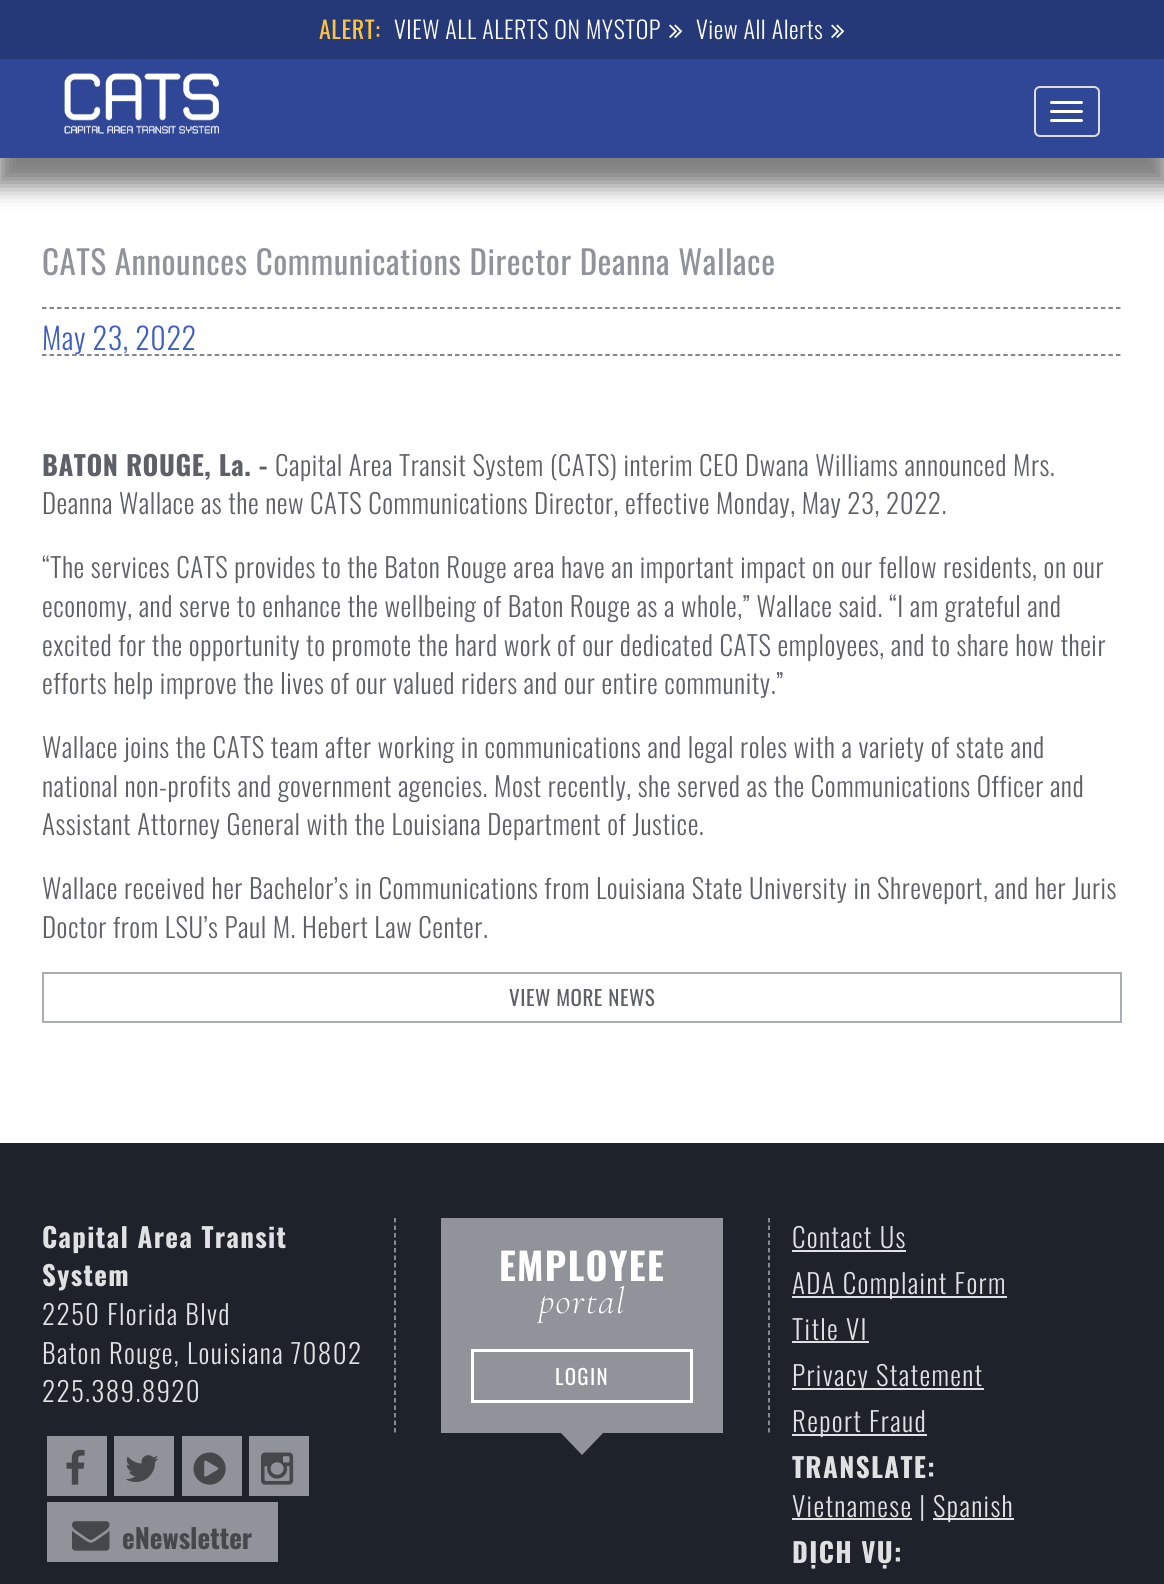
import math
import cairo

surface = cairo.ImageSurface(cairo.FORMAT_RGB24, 1164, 1584)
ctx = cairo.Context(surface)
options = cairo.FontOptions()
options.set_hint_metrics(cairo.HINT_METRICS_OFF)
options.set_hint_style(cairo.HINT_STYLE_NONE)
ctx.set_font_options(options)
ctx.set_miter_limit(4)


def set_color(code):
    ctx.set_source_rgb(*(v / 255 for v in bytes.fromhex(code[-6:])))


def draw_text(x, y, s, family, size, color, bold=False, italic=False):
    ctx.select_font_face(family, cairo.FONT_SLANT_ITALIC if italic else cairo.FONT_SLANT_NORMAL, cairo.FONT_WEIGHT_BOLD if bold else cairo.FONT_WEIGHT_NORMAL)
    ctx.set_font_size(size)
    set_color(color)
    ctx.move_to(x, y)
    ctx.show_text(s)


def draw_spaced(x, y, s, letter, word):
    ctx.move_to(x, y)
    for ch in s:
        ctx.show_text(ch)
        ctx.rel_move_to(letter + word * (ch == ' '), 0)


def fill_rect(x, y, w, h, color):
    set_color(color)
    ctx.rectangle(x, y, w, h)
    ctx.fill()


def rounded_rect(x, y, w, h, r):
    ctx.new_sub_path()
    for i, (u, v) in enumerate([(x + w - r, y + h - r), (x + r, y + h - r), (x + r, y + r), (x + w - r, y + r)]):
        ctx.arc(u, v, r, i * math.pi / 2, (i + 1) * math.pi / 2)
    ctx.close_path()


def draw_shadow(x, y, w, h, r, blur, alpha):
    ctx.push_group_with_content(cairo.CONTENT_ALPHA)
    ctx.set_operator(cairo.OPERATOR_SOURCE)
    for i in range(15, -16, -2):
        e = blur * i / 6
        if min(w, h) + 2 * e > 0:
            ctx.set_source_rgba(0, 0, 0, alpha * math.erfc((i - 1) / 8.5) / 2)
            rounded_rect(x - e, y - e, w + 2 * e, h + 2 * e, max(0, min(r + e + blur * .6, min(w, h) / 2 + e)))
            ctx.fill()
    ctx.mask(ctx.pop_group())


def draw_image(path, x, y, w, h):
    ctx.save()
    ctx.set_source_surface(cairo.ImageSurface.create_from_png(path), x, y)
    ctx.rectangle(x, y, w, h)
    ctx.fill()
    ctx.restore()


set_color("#ffffff")
ctx.paint()
set_color("#000000")
draw_shadow(-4, 20, 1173, 166, 0, 11, 0.5)
fill_rect(0, 0, 1164, 59, "#253877")
ctx.select_font_face("Oswald")
ctx.set_font_size(24)
set_color("#ffc33a")
draw_spaced(319, 39, "ALERT:", 0.54, 0)
ctx.select_font_face("Oswald Light")
set_color("#ffffff")
draw_spaced(394, 39, "VIEW ALL ALERTS ON MYSTOP", 0.54, 0)
draw_image("assets/img1.png", 669, 24, 14, 14)
draw_spaced(696, 39, "View All Alerts", 0.54, 0)
draw_image("assets/img1.png", 831, 24, 14, 14)
fill_rect(0, 59, 1164, 99, "#2f4796")
draw_image("assets/img2.png", 64, 73, 155, 61)
rounded_rect(1035, 87, 64, 49, 5)
set_color("#dddddd")
ctx.stroke()
set_color("#ffffff")
rounded_rect(1050, 101, 33, 3, 1.5)
ctx.fill()
rounded_rect(1050, 110, 33, 3, 1.5)
ctx.fill()
rounded_rect(1050, 119, 33, 3, 1.5)
ctx.fill()
ctx.select_font_face("Oswald")
ctx.set_font_size(33)
set_color("#909399")
draw_spaced(42, 275, "CATS Announces Communications Director Deanna Wallace", 0.54, 0)
ctx.new_path()
ctx.move_to(42, 308)
ctx.line_to(1122, 308)
set_color("#5d6066")
ctx.set_line_width(1.5)
ctx.set_dash([4.5, 3.01])
ctx.stroke()
ctx.new_path()
ctx.move_to(42, 355)
ctx.line_to(1122, 355)
ctx.stroke()
ctx.select_font_face("Oswald Light")
ctx.set_font_size(30)
set_color("#3f5dc3")
draw_spaced(42, 350, "May 23, 2022", 0.54, 0)
ctx.select_font_face("Oswald", cairo.FONT_SLANT_NORMAL, cairo.FONT_WEIGHT_BOLD)
ctx.set_font_size(27)
set_color("#5d6066")
draw_spaced(42, 476, "BATON ROUGE, La. -", 0.54, 0)
ctx.select_font_face("Oswald Light")
draw_spaced(275, 476, "Capital Area Transit System (CATS) interim CEO Dwana Williams announced Mrs.", 0.54, 0)
draw_spaced(42, 514, "Deanna Wallace as the new CATS Communications Director, effective Monday, May 23, 2022.", 0.54, 0)
draw_spaced(42, 578, "“The services CATS provides to the Baton Rouge area have an important impact on our fellow residents, on our", 0.54, 0)
draw_spaced(42, 617, "economy, and serve to enhance the wellbeing of Baton Rouge as a whole,” Wallace said. “I am grateful and", 0.54, 0)
draw_spaced(42, 656, "excited for the opportunity to promote the hard work of our dedicated CATS employees, and to share how their", 0.54, 0)
draw_spaced(42, 694, "efforts help improve the lives of our valued riders and our entire community.”", 0.54, 0)
draw_spaced(42, 758, "Wallace joins the CATS team after working in communications and legal roles with a variety of state and", 0.54, 0)
draw_spaced(42, 797, "national non-profits and government agencies. Most recently, she served as the Communications Officer and", 0.54, 0)
draw_spaced(42, 835, "Assistant Attorney General with the Louisiana Department of Justice.", 0.54, 0)
draw_spaced(42, 899, "Wallace received her Bachelor’s in Communications from Louisiana State University in Shreveport, and her Juris", 0.54, 0)
draw_spaced(42, 938, "Doctor from LSU’s Paul M. Hebert Law Center.", 0.54, 0)
ctx.rectangle(43, 973, 1078, 49)
set_color("#aaadb2")
ctx.set_line_width(2)
ctx.set_dash([])
ctx.stroke()
ctx.select_font_face("Oswald")
ctx.set_font_size(21)
set_color("#5d6066")
draw_spaced(509, 1006, "VIEW MORE NEWS", 0.54, 0)
fill_rect(0, 1143, 1164, 441, "#1e222b")
ctx.select_font_face("Oswald", cairo.FONT_SLANT_NORMAL, cairo.FONT_WEIGHT_BOLD)
ctx.set_font_size(27)
set_color("#e0e1e2")
draw_spaced(42, 1248, "Capital Area Transit", 1.35, 0)
draw_spaced(42, 1286, "System", 1.35, 0)
ctx.select_font_face("Oswald Light")
draw_spaced(42, 1325, "2250 Florida Blvd", 1.35, 0)
draw_spaced(42, 1364, "Baton Rouge, Louisiana 70802", 1.35, 0)
draw_spaced(42, 1402, "225.389.8920", 1.35, 0)
fill_rect(47, 1436, 60, 60, "#909399")
draw_image("assets/img3.png", 66, 1449, 19, 36)
fill_rect(114, 1436, 60, 60, "#909399")
draw_image("assets/img4.png", 125, 1455, 34, 27)
fill_rect(182, 1436, 60, 60, "#909399")
draw_image("assets/img5.png", 193, 1452, 33, 33)
fill_rect(249, 1436, 60, 60, "#909399")
draw_image("assets/img6.png", 261, 1452, 33, 33)
fill_rect(47, 1502, 231, 60, "#909399")
draw_image("assets/img7.png", 72, 1521, 38, 30)
draw_text(122, 1549, "eNewsletter", "Oswald", 27, "#45474b", bold=True)
ctx.new_path()
ctx.move_to(769, 1218)
ctx.line_to(769, 1432.5)
set_color("#aaadb2")
ctx.set_line_width(1.5)
ctx.set_dash([4.5, 3])
ctx.stroke()
ctx.new_path()
ctx.move_to(395, 1218)
ctx.line_to(395, 1432.5)
ctx.stroke()
fill_rect(441, 1218, 282, 215, "#909399")
ctx.set_font_size(37.5)
set_color("#ffffff")
draw_spaced(499, 1281, "EMPLOYEE", 1.35, 0)
ctx.select_font_face("Cormorant Garamond Light", cairo.FONT_SLANT_ITALIC)
draw_spaced(539, 1313, "portal", 1.35, 0)
ctx.rectangle(472.5, 1350.5, 219, 51)
ctx.set_line_width(3)
ctx.set_dash([])
ctx.stroke()
ctx.select_font_face("Oswald")
ctx.set_font_size(21)
draw_spaced(555, 1385, "LOGIN", 1.35, 0)
set_color("#909399")
ctx.new_path()
ctx.move_to(560, 1432)
ctx.line_to(604, 1432)
ctx.line_to(582, 1455)
ctx.close_path()
ctx.fill()
ctx.select_font_face("Oswald Light")
ctx.set_font_size(27)
set_color("#e0e1e2")
draw_spaced(792, 1248, "Contact Us", 1.35, 0)
fill_rect(792, 1250, 114, 2, "#e0e1e2")
fill_rect(792, 1296, 215, 2, "#e0e1e2")
draw_spaced(792, 1294, "ADA Complaint Form", 1.35, 0)
draw_spaced(792, 1340, "Title VI", 1.35, 0)
fill_rect(792, 1341, 77, 2, "#e0e1e2")
fill_rect(792, 1388, 192, 2, "#e0e1e2")
draw_spaced(792, 1386, "Privacy Statement", 1.35, 0)
fill_rect(792, 1434, 135, 2, "#e0e1e2")
draw_spaced(792, 1432, "Report Fraud", 1.35, 0)
ctx.select_font_face("Oswald", cairo.FONT_SLANT_NORMAL, cairo.FONT_WEIGHT_BOLD)
draw_spaced(792, 1478, "TRANSLATE:", 1.35, 0)
fill_rect(792, 1518, 120, 2, "#e0e1e2")
ctx.select_font_face("Oswald Light")
draw_spaced(792, 1517, "Vietnamese |", 1.35, 0)
fill_rect(933, 1518, 81, 2, "#e0e1e2")
draw_spaced(933, 1517, "Spanish", 1.35, 0)
ctx.select_font_face("Oswald", cairo.FONT_SLANT_NORMAL, cairo.FONT_WEIGHT_BOLD)
draw_spaced(792, 1563, "DỊCH VỤ:", 1.35, 0)
surface.write_to_png("output.png")
